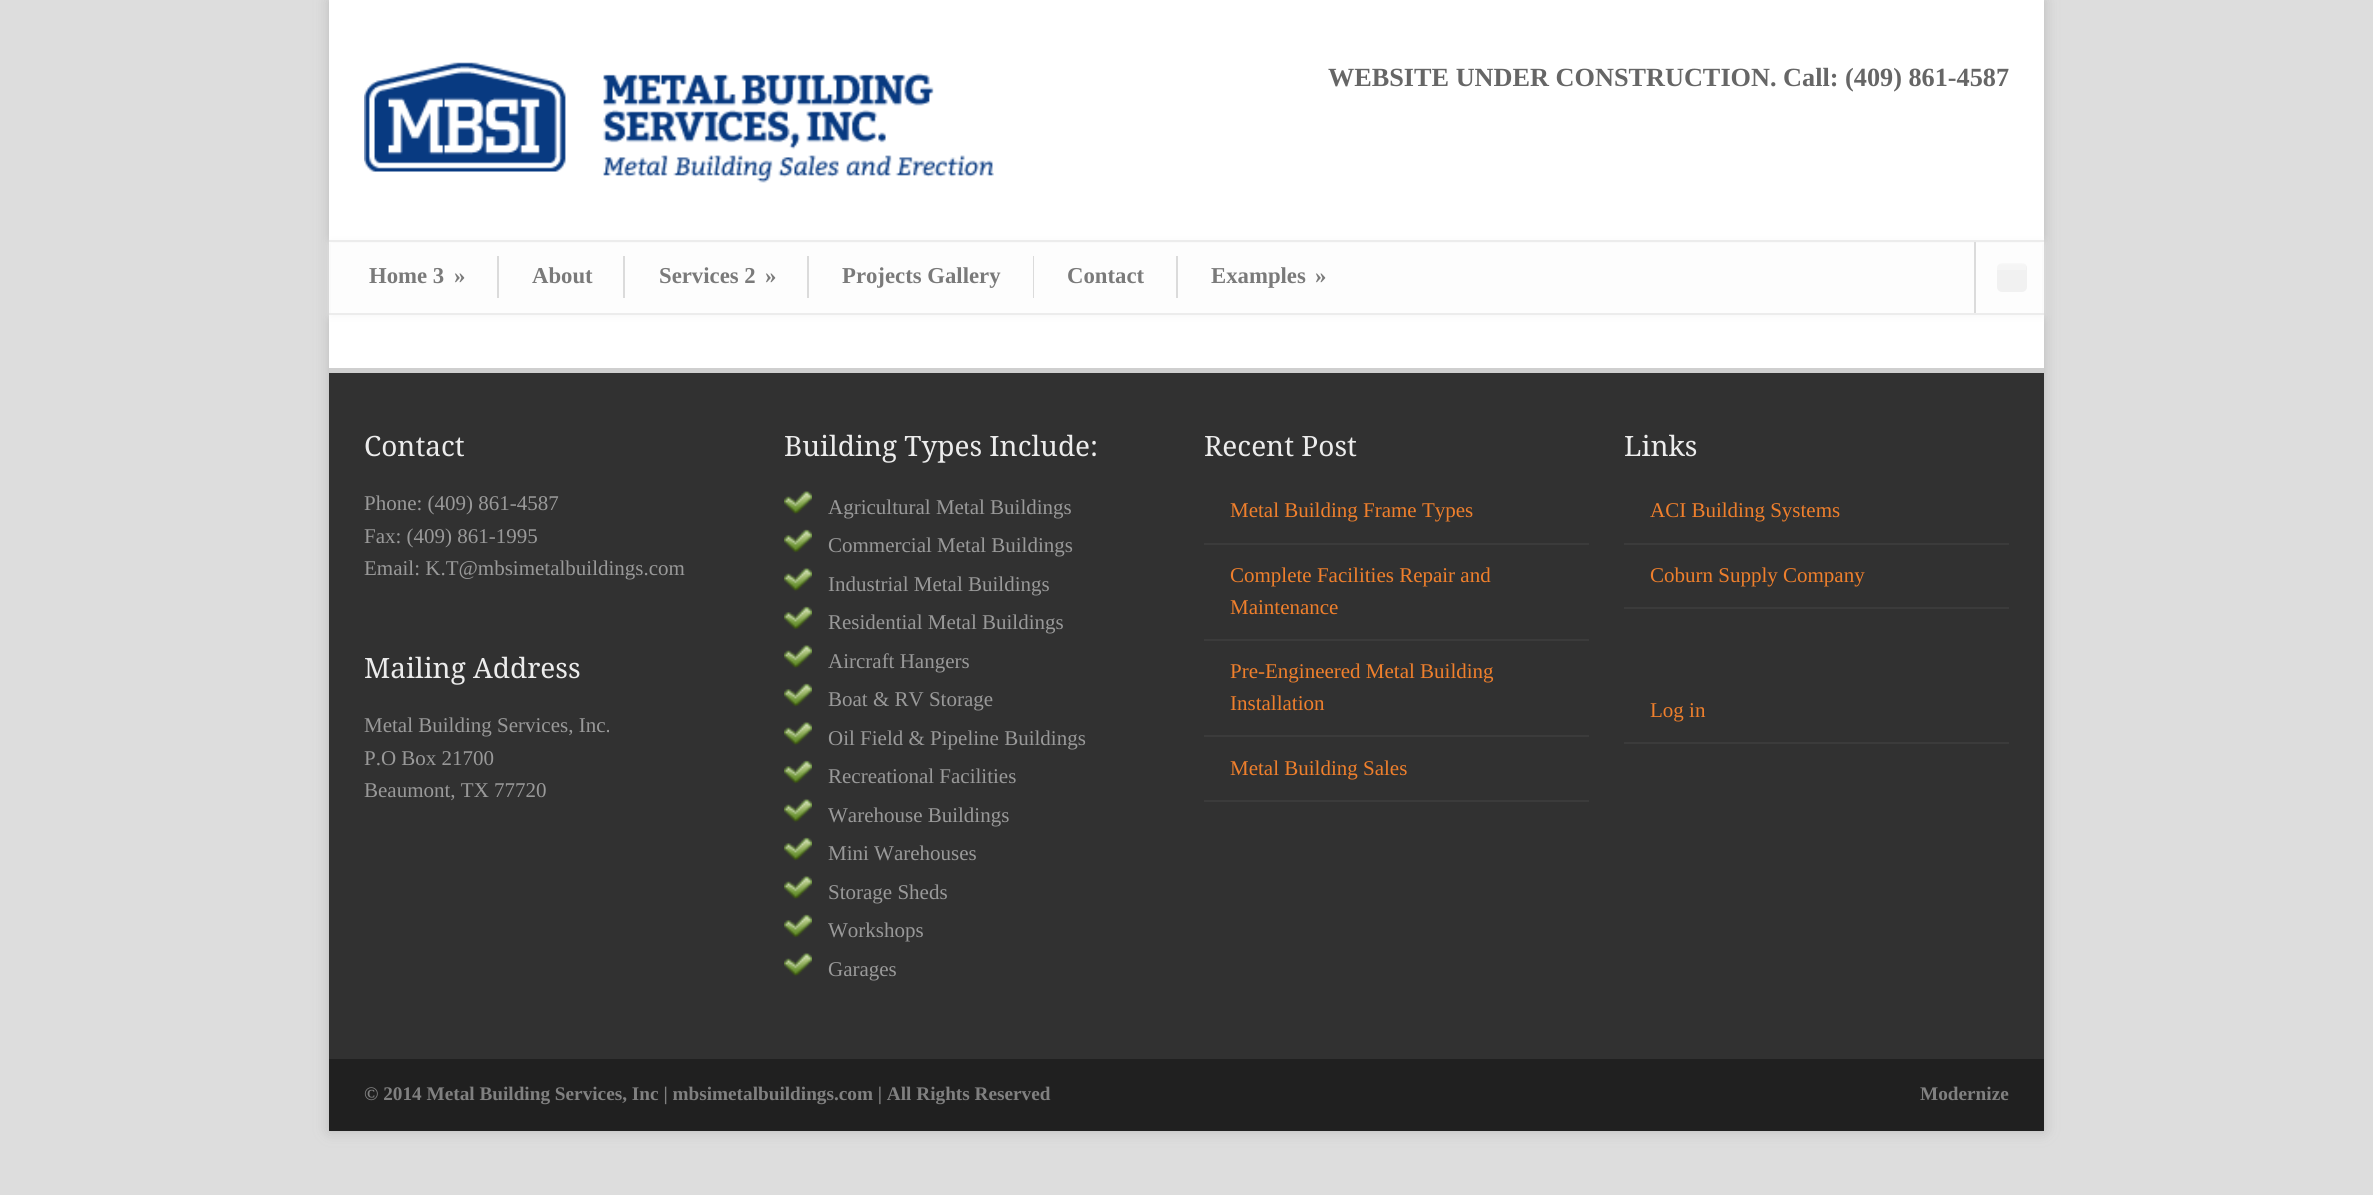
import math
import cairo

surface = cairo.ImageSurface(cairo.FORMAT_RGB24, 2373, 1195)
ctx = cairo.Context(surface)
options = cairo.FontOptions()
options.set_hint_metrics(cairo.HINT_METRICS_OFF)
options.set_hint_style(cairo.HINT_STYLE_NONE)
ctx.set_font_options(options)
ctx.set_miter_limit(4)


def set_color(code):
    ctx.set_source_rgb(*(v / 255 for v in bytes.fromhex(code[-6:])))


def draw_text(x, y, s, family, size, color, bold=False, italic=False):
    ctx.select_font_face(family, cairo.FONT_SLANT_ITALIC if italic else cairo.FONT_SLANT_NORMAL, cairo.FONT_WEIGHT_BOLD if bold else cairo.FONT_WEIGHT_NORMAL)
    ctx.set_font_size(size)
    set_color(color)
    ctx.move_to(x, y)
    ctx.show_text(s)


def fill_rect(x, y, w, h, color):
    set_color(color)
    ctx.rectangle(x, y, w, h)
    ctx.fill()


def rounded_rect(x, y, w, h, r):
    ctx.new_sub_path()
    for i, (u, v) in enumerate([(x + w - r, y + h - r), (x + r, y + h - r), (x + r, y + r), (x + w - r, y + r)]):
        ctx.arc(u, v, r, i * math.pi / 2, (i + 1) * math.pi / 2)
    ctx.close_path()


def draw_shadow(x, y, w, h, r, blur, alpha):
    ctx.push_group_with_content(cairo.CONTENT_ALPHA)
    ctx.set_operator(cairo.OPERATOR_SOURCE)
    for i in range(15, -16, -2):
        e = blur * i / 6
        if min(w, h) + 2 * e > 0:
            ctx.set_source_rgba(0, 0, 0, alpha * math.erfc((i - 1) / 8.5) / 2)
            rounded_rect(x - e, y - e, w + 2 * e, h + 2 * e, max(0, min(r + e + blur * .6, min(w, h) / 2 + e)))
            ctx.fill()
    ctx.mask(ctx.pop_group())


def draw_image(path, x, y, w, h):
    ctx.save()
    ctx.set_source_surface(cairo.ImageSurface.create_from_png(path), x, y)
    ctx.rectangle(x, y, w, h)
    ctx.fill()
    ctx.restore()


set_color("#dddddd")
ctx.paint()
set_color("#bbbbbb")
draw_shadow(329, 0, 1715, 1131, 0, 7, 1)
fill_rect(329, 0, 1715, 368, "#ffffff")
draw_image("assets/img1.png", 364, 62, 630, 121)
draw_text(1328, 86, "WEBSITE UNDER CONSTRUCTION. Call: (409) 861-4587", "Liberation Serif", 26.25, "#666666", bold=True)
set_color("#f5f5f5")
draw_shadow(331, 243, 1711, 72, 0, 4.5, 1)
fill_rect(331, 243, 1711, 70, "#fdfdfd")
fill_rect(329, 240, 1715, 2, "#ececec")
fill_rect(329, 313, 1715, 2, "#ececec")
fill_rect(497, 256, 2, 42, "#dbdbdb")
draw_text(369, 283, "Home 3", "Liberation Serif", 22.75, "#7a7a7a", bold=True)
draw_text(454, 283, "»", "Liberation Serif", 22.75, "#7a7a7a", bold=True)
fill_rect(623, 256, 2, 42, "#dbdbdb")
draw_text(532, 283, "About", "Liberation Serif", 22.75, "#7a7a7a", bold=True)
fill_rect(807, 256, 2, 42, "#dbdbdb")
draw_text(659, 283, "Services 2", "Liberation Serif", 22.75, "#7a7a7a", bold=True)
draw_text(765, 283, "»", "Liberation Serif", 22.75, "#7a7a7a", bold=True)
fill_rect(1033, 256, 1, 42, "#dbdbdb")
draw_text(842, 283, "Projects Gallery", "Liberation Serif", 22.75, "#7a7a7a", bold=True)
fill_rect(1176, 256, 2, 42, "#dbdbdb")
draw_text(1067, 283, "Contact", "Liberation Serif", 22.75, "#7a7a7a", bold=True)
draw_text(1211, 283, "Examples", "Liberation Serif", 22.75, "#7a7a7a", bold=True)
draw_text(1315, 283, "»", "Liberation Serif", 22.75, "#7a7a7a", bold=True)
fill_rect(1974, 242, 2, 71, "#dbdbdb")
set_color("#f1f1f1")
rounded_rect(1997, 263, 30, 29, 5)
ctx.fill()
draw_image("assets/img2.png", 1997, 263, 29, 7)
fill_rect(329, 373, 1715, 686, "#313131")
fill_rect(329, 368, 1715, 5, "#cfcfcf")
draw_text(364, 456, "Contact", "Droid Serif", 28, "#ececec")
draw_text(364, 510, "Phone: (409) 861-4587", "Liberation Serif", 21, "#999999")
draw_text(364, 543, "Fax: (409) 861-1995", "Liberation Serif", 21, "#999999")
draw_text(364, 575, "Email: K.T@mbsimetalbuildings.com", "Liberation Serif", 21, "#999999")
draw_text(364, 678, "Mailing Address", "Droid Serif", 28, "#ececec")
draw_text(364, 732, "Metal Building Services, Inc.", "Liberation Serif", 21, "#999999")
draw_text(364, 765, "P.O Box 21700", "Liberation Serif", 21, "#999999")
draw_text(364, 797, "Beaumont, TX 77720", "Liberation Serif", 21, "#999999")
draw_text(784, 456, "Building Types Include:", "Droid Serif", 28, "#ececec")
draw_image("assets/img3.png", 784, 490, 28, 25)
draw_text(828, 514, "Agricultural Metal Buildings", "Liberation Serif", 21, "#999999")
draw_image("assets/img4.png", 784, 529, 28, 24)
draw_text(828, 552, "Commercial Metal Buildings", "Liberation Serif", 21, "#999999")
draw_image("assets/img3.png", 784, 567, 28, 25)
draw_text(828, 591, "Industrial Metal Buildings", "Liberation Serif", 21, "#999999")
draw_image("assets/img4.png", 784, 606, 28, 24)
draw_text(828, 629, "Residential Metal Buildings", "Liberation Serif", 21, "#999999")
draw_image("assets/img3.png", 784, 644, 28, 25)
draw_text(828, 668, "Aircraft Hangers", "Liberation Serif", 21, "#999999")
draw_image("assets/img4.png", 784, 683, 28, 24)
draw_text(828, 706, "Boat & RV Storage", "Liberation Serif", 21, "#999999")
draw_image("assets/img3.png", 784, 721, 28, 25)
draw_text(828, 745, "Oil Field & Pipeline Buildings", "Liberation Serif", 21, "#999999")
draw_image("assets/img4.png", 784, 760, 28, 24)
draw_text(828, 783, "Recreational Facilities", "Liberation Serif", 21, "#999999")
draw_image("assets/img3.png", 784, 798, 28, 25)
draw_text(828, 822, "Warehouse Buildings", "Liberation Serif", 21, "#999999")
draw_image("assets/img4.png", 784, 837, 28, 24)
draw_text(828, 860, "Mini Warehouses", "Liberation Serif", 21, "#999999")
draw_image("assets/img3.png", 784, 875, 28, 25)
draw_text(828, 899, "Storage Sheds", "Liberation Serif", 21, "#999999")
draw_image("assets/img4.png", 784, 914, 28, 24)
draw_text(828, 937, "Workshops", "Liberation Serif", 21, "#999999")
draw_image("assets/img3.png", 784, 952, 28, 25)
draw_text(828, 976, "Garages", "Liberation Serif", 21, "#999999")
draw_text(1204, 456, "Recent Post", "Droid Serif", 28, "#ececec")
fill_rect(1204, 543, 385, 2, "#3b3b3b")
draw_text(1230, 517, "Metal Building Frame Types", "Liberation Serif", 21, "#ef7f2c")
fill_rect(1204, 639, 385, 2, "#3b3b3b")
draw_text(1230, 582, "Complete Facilities Repair and", "Liberation Serif", 21, "#ef7f2c")
draw_text(1230, 614, "Maintenance", "Liberation Serif", 21, "#ef7f2c")
fill_rect(1204, 735, 385, 2, "#3b3b3b")
draw_text(1230, 678, "Pre-Engineered Metal Building", "Liberation Serif", 21, "#ef7f2c")
draw_text(1230, 710, "Installation", "Liberation Serif", 21, "#ef7f2c")
fill_rect(1204, 800, 385, 2, "#3b3b3b")
draw_text(1230, 775, "Metal Building Sales", "Liberation Serif", 21, "#ef7f2c")
draw_text(1624, 456, "Links", "Droid Serif", 28, "#ececec")
fill_rect(1624, 543, 385, 2, "#3b3b3b")
draw_text(1650, 517, "ACI Building Systems", "Liberation Serif", 21, "#ef7f2c")
fill_rect(1624, 607, 385, 2, "#3b3b3b")
draw_text(1650, 582, "Coburn Supply Company", "Liberation Serif", 21, "#ef7f2c")
fill_rect(1624, 742, 385, 2, "#3b3b3b")
draw_text(1650, 717, "Log in", "Liberation Serif", 21, "#ef7f2c")
fill_rect(329, 1059, 1715, 72, "#202020")
draw_text(364, 1100, "© 2014 Metal Building Services, Inc | mbsimetalbuildings.com | All Rights Reserved", "Liberation Serif", 19.25, "#808080", bold=True)
draw_text(1920, 1100, "Modernize", "Liberation Serif", 19.25, "#808080", bold=True)
surface.write_to_png("output.png")
